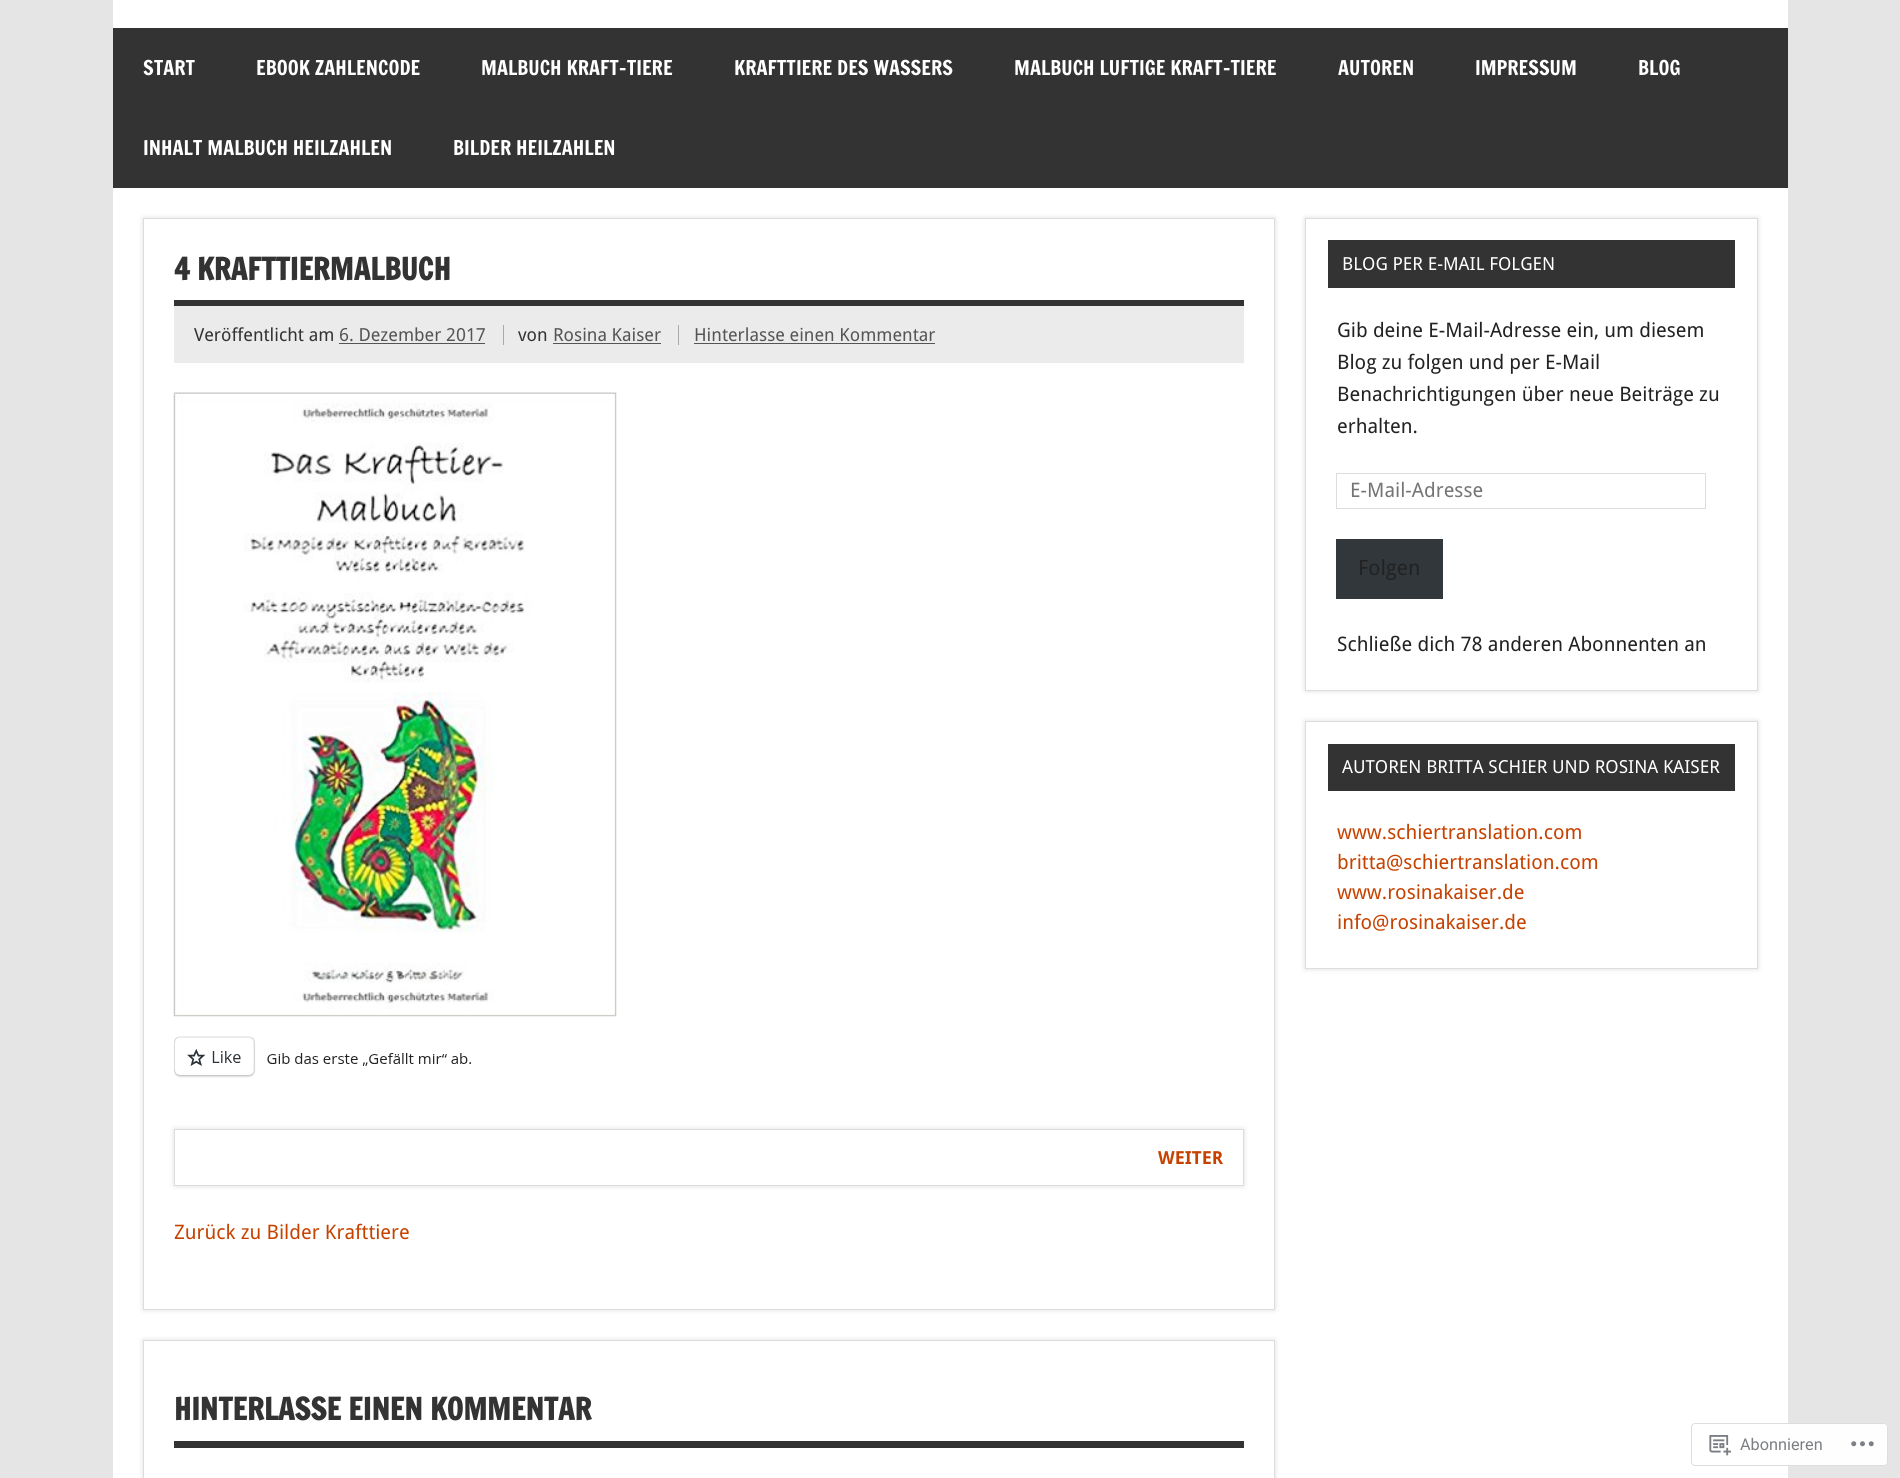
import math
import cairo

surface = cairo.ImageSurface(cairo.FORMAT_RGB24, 1900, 1478)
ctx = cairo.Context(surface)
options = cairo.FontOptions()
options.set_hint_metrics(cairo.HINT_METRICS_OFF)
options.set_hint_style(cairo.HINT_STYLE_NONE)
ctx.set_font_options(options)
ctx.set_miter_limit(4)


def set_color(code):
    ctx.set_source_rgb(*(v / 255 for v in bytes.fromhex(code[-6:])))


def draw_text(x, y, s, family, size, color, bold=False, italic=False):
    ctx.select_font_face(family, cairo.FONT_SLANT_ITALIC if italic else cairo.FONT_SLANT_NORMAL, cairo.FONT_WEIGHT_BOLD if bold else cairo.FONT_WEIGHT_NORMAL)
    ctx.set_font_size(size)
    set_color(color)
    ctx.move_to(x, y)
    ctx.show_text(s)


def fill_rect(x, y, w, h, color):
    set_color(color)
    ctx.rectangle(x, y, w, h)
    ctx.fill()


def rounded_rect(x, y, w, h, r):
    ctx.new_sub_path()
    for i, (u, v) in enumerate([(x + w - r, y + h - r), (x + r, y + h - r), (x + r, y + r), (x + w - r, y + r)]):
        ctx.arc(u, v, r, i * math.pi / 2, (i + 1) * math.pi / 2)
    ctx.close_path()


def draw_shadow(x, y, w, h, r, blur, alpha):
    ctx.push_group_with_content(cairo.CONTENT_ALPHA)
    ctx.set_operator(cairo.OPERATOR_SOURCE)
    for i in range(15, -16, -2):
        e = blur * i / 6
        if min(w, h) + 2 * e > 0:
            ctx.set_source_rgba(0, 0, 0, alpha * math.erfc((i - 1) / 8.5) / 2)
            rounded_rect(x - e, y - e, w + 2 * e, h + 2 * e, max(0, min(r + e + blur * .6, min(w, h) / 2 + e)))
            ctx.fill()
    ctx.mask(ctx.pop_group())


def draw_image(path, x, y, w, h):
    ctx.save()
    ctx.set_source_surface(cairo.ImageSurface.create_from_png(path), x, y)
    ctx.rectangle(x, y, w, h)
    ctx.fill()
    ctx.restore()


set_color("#e5e5e5")
ctx.paint()
fill_rect(113, 0, 1675, 1478, "#ffffff")
fill_rect(113, 28, 1675, 160, "#333333")
draw_text(143, 75, "START", "Francois One", 20, "#ffffff")
draw_text(256, 75, "EBOOK ZAHLENCODE", "Francois One", 20, "#ffffff")
draw_text(481, 75, "MALBUCH KRAFT-TIERE", "Francois One", 20, "#ffffff")
draw_text(734, 75, "KRAFTTIERE DES WASSERS", "Francois One", 20, "#ffffff")
draw_text(1014, 75, "MALBUCH LUFTIGE KRAFT-TIERE", "Francois One", 20, "#ffffff")
draw_text(1338, 75, "AUTOREN", "Francois One", 20, "#ffffff")
draw_text(1475, 75, "IMPRESSUM", "Francois One", 20, "#ffffff")
draw_text(1638, 75, "BLOG", "Francois One", 20, "#ffffff")
draw_text(143, 155, "INHALT MALBUCH HEILZAHLEN", "Francois One", 20, "#ffffff")
draw_text(453, 155, "BILDER HEILZAHLEN", "Francois One", 20, "#ffffff")
ctx.save()
ctx.set_fill_rule(cairo.FILL_RULE_EVEN_ODD)
ctx.new_path()
ctx.move_to(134, 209)
ctx.line_to(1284, 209)
ctx.line_to(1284, 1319)
ctx.line_to(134, 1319)
ctx.close_path()
ctx.move_to(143, 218)
ctx.line_to(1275, 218)
ctx.line_to(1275, 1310)
ctx.line_to(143, 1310)
ctx.close_path()
ctx.clip()
set_color("#dddddd")
draw_shadow(143, 218, 1132, 1092, 0, 2.5, 1)
ctx.restore()
ctx.rectangle(143.5, 218.5, 1131, 1091)
set_color("#dddddd")
ctx.set_line_width(1)
ctx.stroke()
fill_rect(174, 300, 1070, 6, "#333333")
draw_text(174, 280, "4 KRAFTTIERMALBUCH", "Francois One", 30, "#333333", bold=True)
fill_rect(174, 306, 1070, 57, "#ebebeb")
draw_text(194, 341, "Veröffentlicht am", "Droid Sans", 18, "#333333")
draw_text(339, 341, "6. Dezember 2017", "Droid Sans", 18, "#555555")
fill_rect(339, 343, 146, 1, "#555555")
draw_text(518, 341, "von", "Droid Sans", 18, "#333333")
fill_rect(503, 325, 1, 20, "#aaaaaa")
draw_text(553, 341, "Rosina Kaiser", "Droid Sans", 18, "#555555")
fill_rect(553, 343, 108, 1, "#555555")
draw_text(694, 341, "Hinterlasse einen Kommentar", "Droid Sans", 18, "#555555")
fill_rect(678, 325, 1, 20, "#aaaaaa")
fill_rect(694, 343, 241, 1, "#555555")
draw_image("assets/img1.png", 173, 392, 444, 625)
draw_image("assets/img2.png", 174, 1036, 298, 42)
set_color("#dddddd")
draw_shadow(174, 1129, 1070, 57, 0, 2.5, 1)
set_color("#ffffff")
ctx.rectangle(174.5, 1129.5, 1069, 56)
ctx.fill_preserve()
set_color("#dddddd")
ctx.stroke()
draw_text(1158, 1164, "WEITER", "Droid Sans", 18, "#c64200", bold=True)
draw_text(174, 1239, "Zurück zu Bilder Krafttiere", "Droid Sans", 20, "#c64200")
ctx.save()
ctx.set_fill_rule(cairo.FILL_RULE_EVEN_ODD)
ctx.new_path()
ctx.move_to(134, 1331)
ctx.line_to(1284, 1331)
ctx.line_to(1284, 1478)
ctx.line_to(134, 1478)
ctx.close_path()
ctx.move_to(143, 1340)
ctx.line_to(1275, 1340)
ctx.line_to(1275, 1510)
ctx.line_to(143, 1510)
ctx.close_path()
ctx.clip()
set_color("#dddddd")
draw_shadow(143, 1340, 1132, 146, 0, 2.5, 1)
ctx.restore()
ctx.rectangle(143.5, 1340.5, 1131, 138)
set_color("#dddddd")
ctx.stroke()
fill_rect(174, 1441, 1070, 7, "#333333")
draw_text(174, 1420, "HINTERLASSE EINEN KOMMENTAR", "Francois One", 30, "#333333", bold=True)
set_color("#dddddd")
draw_shadow(1305, 218, 453, 473, 0, 2.5, 1)
set_color("#ffffff")
ctx.rectangle(1305.5, 218.5, 452, 472)
ctx.fill_preserve()
set_color("#dddddd")
ctx.stroke()
fill_rect(1328, 240, 407, 48, "#333333")
draw_text(1342, 270, "BLOG PER E-MAIL FOLGEN", "Droid Sans", 18, "#ffffff")
draw_text(1337, 337, "Gib deine E-Mail-Adresse ein, um diesem", "Droid Sans", 20, "#222222")
draw_text(1337, 369, "Blog zu folgen und per E-Mail", "Droid Sans", 20, "#222222")
draw_text(1337, 401, "Benachrichtigungen über neue Beiträge zu", "Droid Sans", 20, "#222222")
draw_text(1337, 433, "erhalten.", "Droid Sans", 20, "#222222")
ctx.rectangle(1336.5, 473.5, 369, 35)
set_color("#dddddd")
ctx.stroke()
draw_text(1350, 497, "E-Mail-Adresse", "Droid Sans", 20, "#757575")
fill_rect(1336, 539, 107, 60, "#32373c")
draw_text(1358, 575, "Folgen", "Droid Sans", 21, "#222222")
draw_text(1337, 651, "Schließe dich 78 anderen Abonnenten an", "Droid Sans", 20, "#222222")
set_color("#dddddd")
draw_shadow(1305, 721, 453, 248, 0, 2.5, 1)
set_color("#ffffff")
ctx.rectangle(1305.5, 721.5, 452, 247)
ctx.fill_preserve()
set_color("#dddddd")
ctx.stroke()
fill_rect(1328, 744, 407, 47, "#333333")
draw_text(1342, 773, "AUTOREN BRITTA SCHIER UND ROSINA KAISER", "Droid Sans", 18, "#ffffff")
draw_text(1337, 839, "www.schiertranslation.com", "Droid Sans", 20, "#c64200")
draw_text(1337, 869, "britta@schiertranslation.com", "Droid Sans", 20, "#c64200")
draw_text(1337, 899, "www.rosinakaiser.de", "Droid Sans", 20, "#c64200")
draw_text(1337, 929, "info@rosinakaiser.de", "Droid Sans", 20, "#c64200")
ctx.set_source_rgba(1, 1, 1, 0.98)
rounded_rect(1691, 1423, 197, 43, 4)
ctx.fill()
rounded_rect(1691.5, 1423.5, 196, 42, 3.5)
ctx.set_source_rgba(0.863, 0.863, 0.871, 0.98)
ctx.stroke()
draw_image("assets/img3.png", 1709, 1435, 22, 21)
draw_text(1740, 1450, "Abonnieren", "Roboto", 16.25, "#7b7f84")
draw_image("assets/img4.png", 1851, 1441, 23, 6)
surface.write_to_png("output.png")
